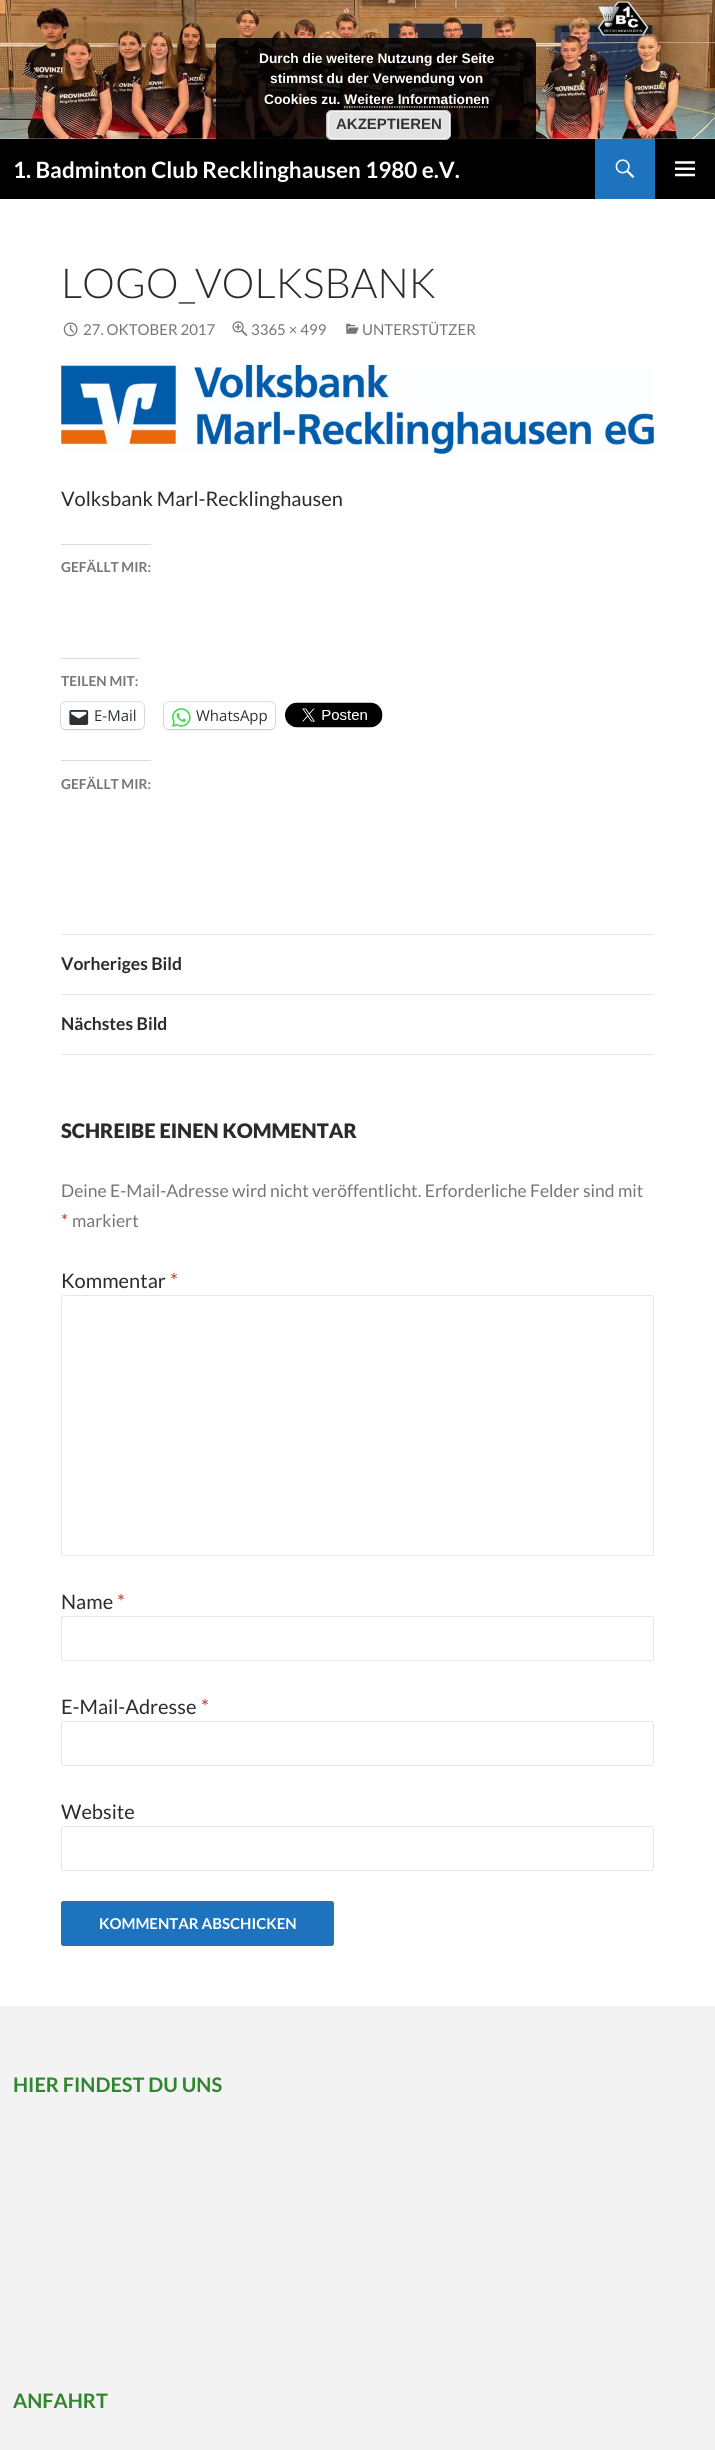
import math
import cairo

surface = cairo.ImageSurface(cairo.FORMAT_RGB24, 715, 2450)
ctx = cairo.Context(surface)
options = cairo.FontOptions()
options.set_hint_metrics(cairo.HINT_METRICS_OFF)
options.set_hint_style(cairo.HINT_STYLE_NONE)
ctx.set_font_options(options)
ctx.set_miter_limit(4)


def set_color(code):
    ctx.set_source_rgb(*(v / 255 for v in bytes.fromhex(code[-6:])))


def draw_text(x, y, s, family, size, color, bold=False, italic=False):
    ctx.select_font_face(family, cairo.FONT_SLANT_ITALIC if italic else cairo.FONT_SLANT_NORMAL, cairo.FONT_WEIGHT_BOLD if bold else cairo.FONT_WEIGHT_NORMAL)
    ctx.set_font_size(size)
    set_color(color)
    ctx.move_to(x, y)
    ctx.show_text(s)


def fill_rect(x, y, w, h, color):
    set_color(color)
    ctx.rectangle(x, y, w, h)
    ctx.fill()


def rounded_rect(x, y, w, h, r):
    ctx.new_sub_path()
    for i, (u, v) in enumerate([(x + w - r, y + h - r), (x + r, y + h - r), (x + r, y + r), (x + w - r, y + r)]):
        ctx.arc(u, v, r, i * math.pi / 2, (i + 1) * math.pi / 2)
    ctx.close_path()


def draw_shadow(x, y, w, h, r, blur, alpha):
    ctx.push_group_with_content(cairo.CONTENT_ALPHA)
    ctx.set_operator(cairo.OPERATOR_SOURCE)
    for i in range(15, -16, -2):
        e = blur * i / 6
        if min(w, h) + 2 * e > 0:
            ctx.set_source_rgba(0, 0, 0, alpha * math.erfc((i - 1) / 8.5) / 2)
            rounded_rect(x - e, y - e, w + 2 * e, h + 2 * e, max(0, min(r + e + blur * .6, min(w, h) / 2 + e)))
            ctx.fill()
    ctx.mask(ctx.pop_group())


def draw_image(path, x, y, w, h):
    ctx.save()
    ctx.set_source_surface(cairo.ImageSurface.create_from_png(path), x, y)
    ctx.rectangle(x, y, w, h)
    ctx.fill()
    ctx.restore()


set_color("#ffffff")
ctx.paint()
draw_image("assets/img1.png", 0, 0, 715, 139)
fill_rect(0, 139, 715, 60, "#000000")
ctx.set_source_rgba(0, 0, 0, 0.85)
rounded_rect(216, 38, 320, 112, 6)
ctx.fill()
draw_text(259, 63, "Durch die weitere Nutzung der Seite", "Liberation Sans", 13.75, "#ffffff", bold=True)
draw_text(270, 83, "stimmst du der Verwendung von", "Liberation Sans", 13.75, "#ffffff", bold=True)
draw_text(264, 104, "Cookies zu. Weitere Informationen", "Liberation Sans", 13.75, "#ffffff", bold=True)
ctx.new_path()
ctx.move_to(344, 107)
ctx.line_to(489, 107)
ctx.set_line_width(1.2)
ctx.set_dash([1.25, 1.25])
ctx.stroke()
set_color("#e3e3e3")
rounded_rect(326, 110, 125, 30, 6)
ctx.fill()
rounded_rect(328.5, 111.5, 121, 27, 4.5)
set_color("#f6f6f6")
ctx.set_line_width(1)
ctx.set_dash([])
ctx.stroke()
rounded_rect(326.5, 110.5, 124, 29, 5.5)
set_color("#bbbbbb")
ctx.stroke()
draw_text(336, 129, "AKZEPTIEREN", "Liberation Sans", 15, "#333333", bold=True)
draw_text(13, 178, "1. Badminton Club Recklinghausen 1980 e.V.", "Lato", 22.5, "#ffffff", bold=True)
fill_rect(595, 139, 60, 60, "#1e73be")
draw_image("assets/img2.png", 615, 159, 20, 19)
draw_image("assets/img3.png", 675, 161, 20, 16)
draw_text(61, 298, "LOGO_VOLKSBANK", "Lato Light", 41.25, "#2b2b2b")
draw_image("assets/img4.png", 63, 322, 15, 15)
draw_text(83, 335, "27. OKTOBER 2017", "Lato", 15, "#767676")
draw_image("assets/img5.png", 232, 321, 16, 16)
draw_text(251, 335, "3365 × 499", "Lato", 15, "#767676")
draw_image("assets/img6.png", 346, 323, 13, 11)
draw_text(362, 335, "UNTERSTÜTZER", "Lato", 15, "#767676")
draw_image("assets/img7.png", 61, 365, 593, 89)
draw_text(61, 506, "Volksbank Marl-Recklinghausen", "Lato", 20, "#2b2b2b")
fill_rect(61, 544, 90, 1, "#dcdcde")
draw_text(61, 572, "GEFÄLLT MIR:", "Lato", 13.75, "#767676", bold=True)
fill_rect(61, 658, 78, 1, "#dcdcde")
draw_text(61, 686, "TEILEN MIT:", "Lato", 13.75, "#767676", bold=True)
rounded_rect(60.5, 701.5, 84, 28, 5.5)
set_color("#e0e0e0")
ctx.stroke()
set_color("#000000")
draw_shadow(61, 704, 83, 26, 5, 1, 0.12)
set_color("#ffffff")
rounded_rect(61, 703, 83, 26, 5)
ctx.fill()
draw_image("assets/img8.png", 69, 710, 20, 15)
draw_text(94, 721, "E-Mail", "Open Sans", 15, "#2c3338")
rounded_rect(163.5, 701.5, 112, 28, 5.5)
set_color("#e0e0e0")
ctx.stroke()
set_color("#000000")
draw_shadow(164, 704, 111, 26, 5, 1, 0.12)
set_color("#ffffff")
rounded_rect(164, 703, 111, 26, 5)
ctx.fill()
draw_image("assets/img9.png", 172, 708, 19, 19)
draw_text(196, 721, "WhatsApp", "Open Sans", 15, "#2c3338")
draw_image("assets/img10.png", 285, 702, 98, 26)
fill_rect(61, 760, 90, 1, "#dcdcde")
draw_text(61, 789, "GEFÄLLT MIR:", "Lato", 13.75, "#767676", bold=True)
fill_rect(61, 934, 593, 1, "#e6e6e6")
fill_rect(61, 994, 593, 1, "#e6e6e6")
draw_text(61, 970, "Vorheriges Bild", "Lato", 17.5, "#2b2b2b", bold=True)
fill_rect(61, 1054, 593, 1, "#e6e6e6")
draw_text(61, 1030, "Nächstes Bild", "Lato", 17.5, "#2b2b2b", bold=True)
draw_text(61, 1138, "SCHREIBE EINEN KOMMENTAR", "Lato Black", 20, "#2b2b2b")
draw_text(61, 1197, "Deine E-Mail-Adresse wird nicht veröffentlicht. Erforderliche Felder sind mit", "Lato", 17.5, "#767676")
draw_text(61, 1227, "*", "Lato", 17.5, "#c0392b")
draw_text(72, 1227, "markiert", "Lato", 17.5, "#767676")
draw_text(61, 1288, "Kommentar", "Lato", 20, "#2b2b2b")
draw_text(170, 1288, "*", "Lato", 20, "#c0392b")
rounded_rect(61.5, 1295.5, 592, 260, 2)
set_color("#e6e6e6")
ctx.stroke()
draw_text(61, 1609, "Name", "Lato", 20, "#2b2b2b")
draw_text(117, 1609, "*", "Lato", 20, "#c0392b")
rounded_rect(61.5, 1616.5, 592, 44, 2)
set_color("#e6e6e6")
ctx.stroke()
draw_text(61, 1714, "E-Mail-Adresse", "Lato", 20, "#2b2b2b")
draw_text(201, 1714, "*", "Lato", 20, "#c0392b")
rounded_rect(61.5, 1721.5, 592, 44, 2)
set_color("#e6e6e6")
ctx.stroke()
draw_text(61, 1819, "Website", "Lato", 20, "#2b2b2b")
rounded_rect(61.5, 1826.5, 592, 44, 2)
set_color("#e6e6e6")
ctx.stroke()
set_color("#1e73be")
rounded_rect(61, 1901, 273, 45, 2.5)
ctx.fill()
draw_text(99, 1929, "KOMMENTAR ABSCHICKEN", "Lato", 15, "#ffffff", bold=True)
fill_rect(0, 2006, 715, 444, "#f3f3f3")
draw_text(13, 2092, "HIER FINDEST DU UNS", "Lato", 20, "#308530", bold=True)
draw_text(13, 2408, "ANFAHRT", "Lato", 20, "#308530", bold=True)
surface.write_to_png("output.png")
